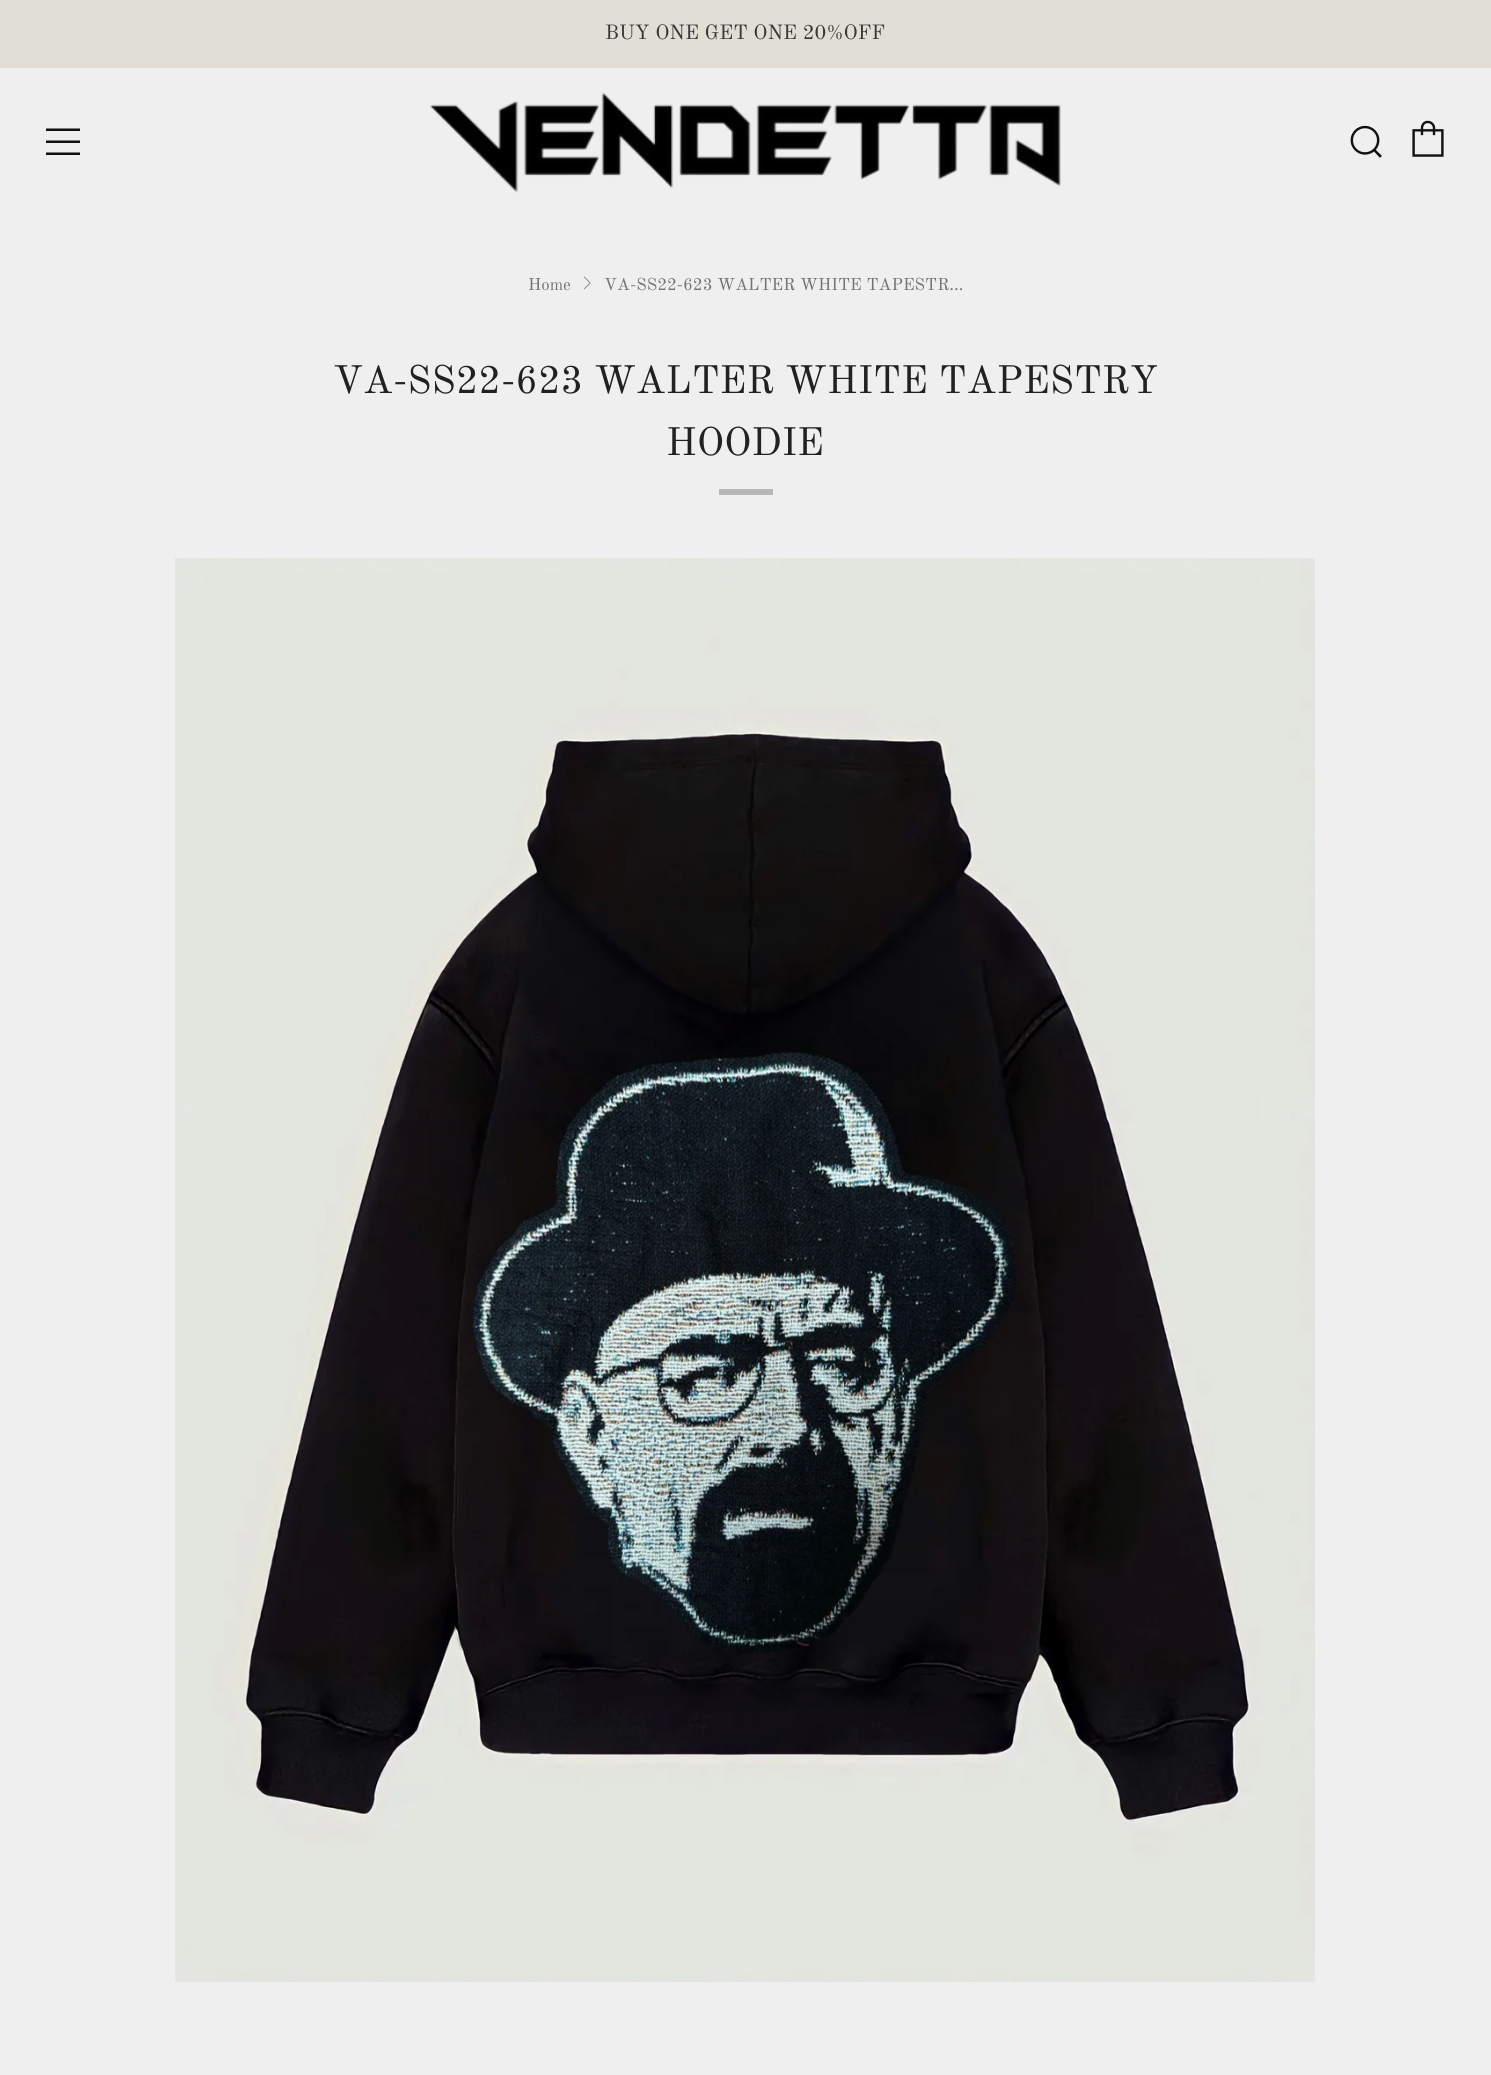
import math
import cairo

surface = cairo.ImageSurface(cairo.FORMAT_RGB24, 1491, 2075)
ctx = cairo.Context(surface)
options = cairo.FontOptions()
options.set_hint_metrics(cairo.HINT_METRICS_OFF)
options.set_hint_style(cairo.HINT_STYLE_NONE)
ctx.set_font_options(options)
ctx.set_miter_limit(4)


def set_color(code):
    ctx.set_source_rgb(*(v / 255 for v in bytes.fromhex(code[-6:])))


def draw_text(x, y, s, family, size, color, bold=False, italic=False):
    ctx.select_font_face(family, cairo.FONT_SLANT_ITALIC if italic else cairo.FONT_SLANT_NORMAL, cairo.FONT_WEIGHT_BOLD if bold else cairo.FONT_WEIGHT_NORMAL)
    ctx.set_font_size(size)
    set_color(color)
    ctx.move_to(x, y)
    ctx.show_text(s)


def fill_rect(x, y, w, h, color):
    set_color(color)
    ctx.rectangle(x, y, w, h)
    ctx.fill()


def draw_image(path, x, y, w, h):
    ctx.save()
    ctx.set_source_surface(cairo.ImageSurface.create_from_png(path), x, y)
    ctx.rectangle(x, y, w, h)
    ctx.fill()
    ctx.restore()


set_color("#efefef")
ctx.paint()
fill_rect(0, 0, 1491, 68, "#e1ded6")
draw_text(605, 39, "BUY ONE GET ONE 20%OFF", "Old Standard TT", 20.25, "#363636")
set_color("#111111")
ctx.new_path()
ctx.move_to(46, 131)
ctx.line_to(80, 131)
ctx.line_to(80, 128.5)
ctx.line_to(46, 128.5)
ctx.close_path()
ctx.move_to(46, 155)
ctx.line_to(80, 155)
ctx.line_to(80, 152.5)
ctx.line_to(46, 152.5)
ctx.close_path()
ctx.move_to(46, 143)
ctx.line_to(80, 143)
ctx.line_to(80, 140.5)
ctx.line_to(46, 140.5)
ctx.close_path()
ctx.fill()
draw_image("assets/img1.png", 430, 92, 631, 101)
draw_image("assets/img2.png", 1350, 125, 32, 33)
draw_image("assets/img3.png", 1412, 120, 32, 37)
draw_text(528, 290, "Home", "Old Standard TT", 16.9, "#727272")
draw_image("assets/img4.png", 583, 276, 8, 14)
draw_text(604, 290, "VA-SS22-623 WALTER WHITE TAPESTR...", "Old Standard TT", 16.9, "#727272")
draw_text(333, 393, "VA-SS22-623 WALTER WHITE TAPESTRY", "Old Standard TT", 39, "#212121")
draw_text(666, 455, "HOODIE", "Old Standard TT", 39, "#212121")
fill_rect(719, 489, 54, 6, "#b7b7b7")
draw_image("assets/img5.png", 175, 558, 1140, 1424)
surface.write_to_png("output.png")
